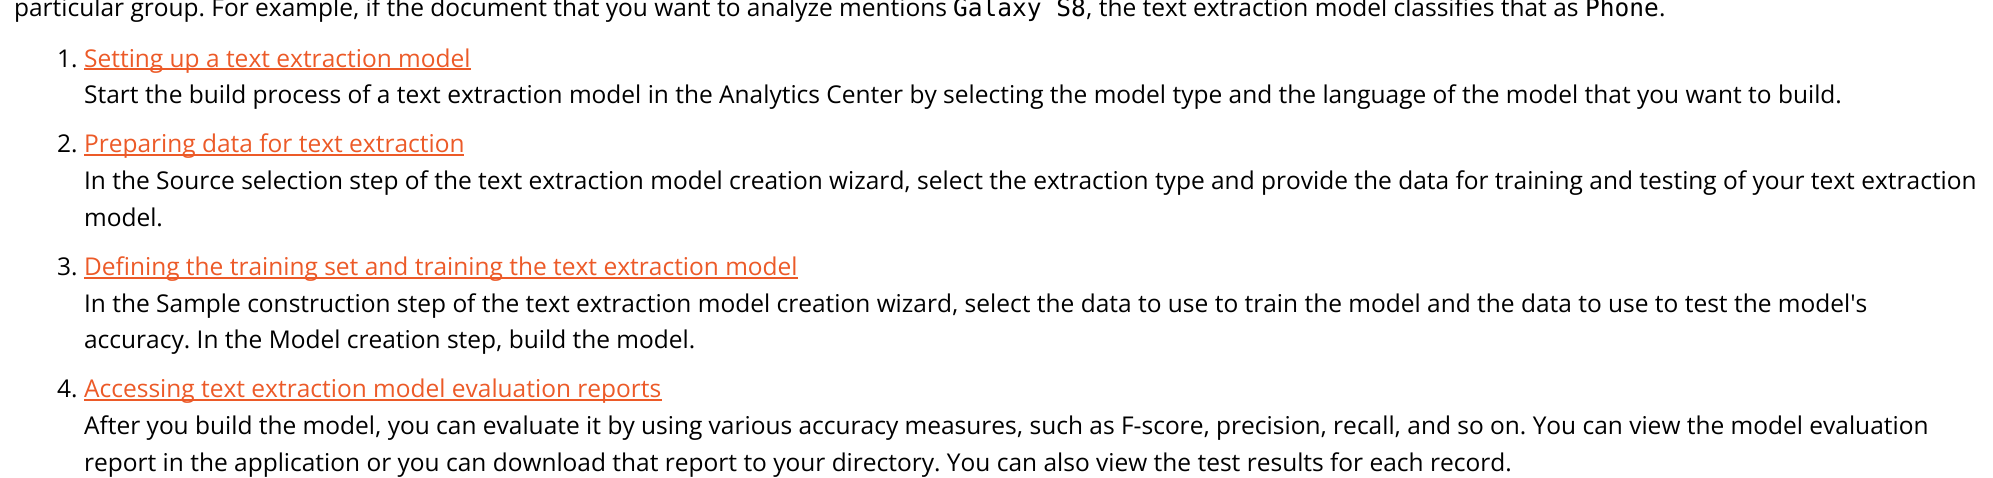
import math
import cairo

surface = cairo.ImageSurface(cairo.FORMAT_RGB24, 1993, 478)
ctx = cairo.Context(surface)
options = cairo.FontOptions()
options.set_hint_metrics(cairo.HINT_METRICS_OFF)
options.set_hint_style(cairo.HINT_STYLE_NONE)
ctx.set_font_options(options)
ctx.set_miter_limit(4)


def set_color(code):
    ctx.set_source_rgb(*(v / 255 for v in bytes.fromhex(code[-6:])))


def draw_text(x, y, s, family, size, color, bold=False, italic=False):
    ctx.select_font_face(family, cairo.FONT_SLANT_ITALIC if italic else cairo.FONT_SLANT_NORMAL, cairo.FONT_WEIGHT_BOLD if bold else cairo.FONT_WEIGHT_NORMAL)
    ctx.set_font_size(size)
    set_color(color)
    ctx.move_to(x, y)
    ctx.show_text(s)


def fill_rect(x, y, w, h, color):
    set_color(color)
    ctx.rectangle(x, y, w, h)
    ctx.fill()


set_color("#ffffff")
ctx.paint()
draw_text(14, 16, "particular group. For example, if the document that you want to analyze mentions", "Open Sans", 24.5, "#000000")
draw_text(953, 16, "Galaxy S8", "DejaVu Sans Mono", 24.5, "#000000")
draw_text(1086, 16, ", the text extraction model classifies that as", "Open Sans", 24.5, "#000000")
draw_text(1585, 16, "Phone", "DejaVu Sans Mono", 24.5, "#000000")
draw_text(1659, 16, ".", "Open Sans", 24.5, "#000000")
draw_text(57, 67, "1.", "Open Sans", 24.5, "#000000")
fill_rect(84, 68, 387, 2, "#ec5a28")
draw_text(84, 67, "Setting up a text extraction model", "Open Sans", 24.5, "#ec5a28")
draw_text(84, 103, "Start the build process of a text extraction model in the Analytics Center by selecting the model type and the language of the model that you want to build.", "Open Sans", 24.5, "#000000")
draw_text(57, 152, "2.", "Open Sans", 24.5, "#000000")
fill_rect(84, 154, 380, 2, "#ec5a28")
draw_text(84, 152, "Preparing data for text extraction", "Open Sans", 24.5, "#ec5a28")
draw_text(84, 189, "In the Source selection step of the text extraction model creation wizard, select the extraction type and provide the data for training and testing of your text extraction", "Open Sans", 24.5, "#000000")
draw_text(84, 226, "model.", "Open Sans", 24.5, "#000000")
draw_text(57, 275, "3.", "Open Sans", 24.5, "#000000")
fill_rect(84, 277, 714, 2, "#ec5a28")
draw_text(84, 275, "Defining the training set and training the text extraction model", "Open Sans", 24.5, "#ec5a28")
draw_text(84, 312, "In the Sample construction step of the text extraction model creation wizard, select the data to use to train the model and the data to use to test the model's", "Open Sans", 24.5, "#000000")
draw_text(84, 348, "accuracy. In the Model creation step, build the model.", "Open Sans", 24.5, "#000000")
draw_text(57, 397, "4.", "Open Sans", 24.5, "#000000")
fill_rect(84, 399, 578, 2, "#ec5a28")
draw_text(84, 397, "Accessing text extraction model evaluation reports", "Open Sans", 24.5, "#ec5a28")
draw_text(84, 434, "After you build the model, you can evaluate it by using various accuracy measures, such as F-score, precision, recall, and so on. You can view the model evaluation", "Open Sans", 24.5, "#000000")
draw_text(84, 471, "report in the application or you can download that report to your directory. You can also view the test results for each record.", "Open Sans", 24.5, "#000000")
surface.write_to_png("output.png")
